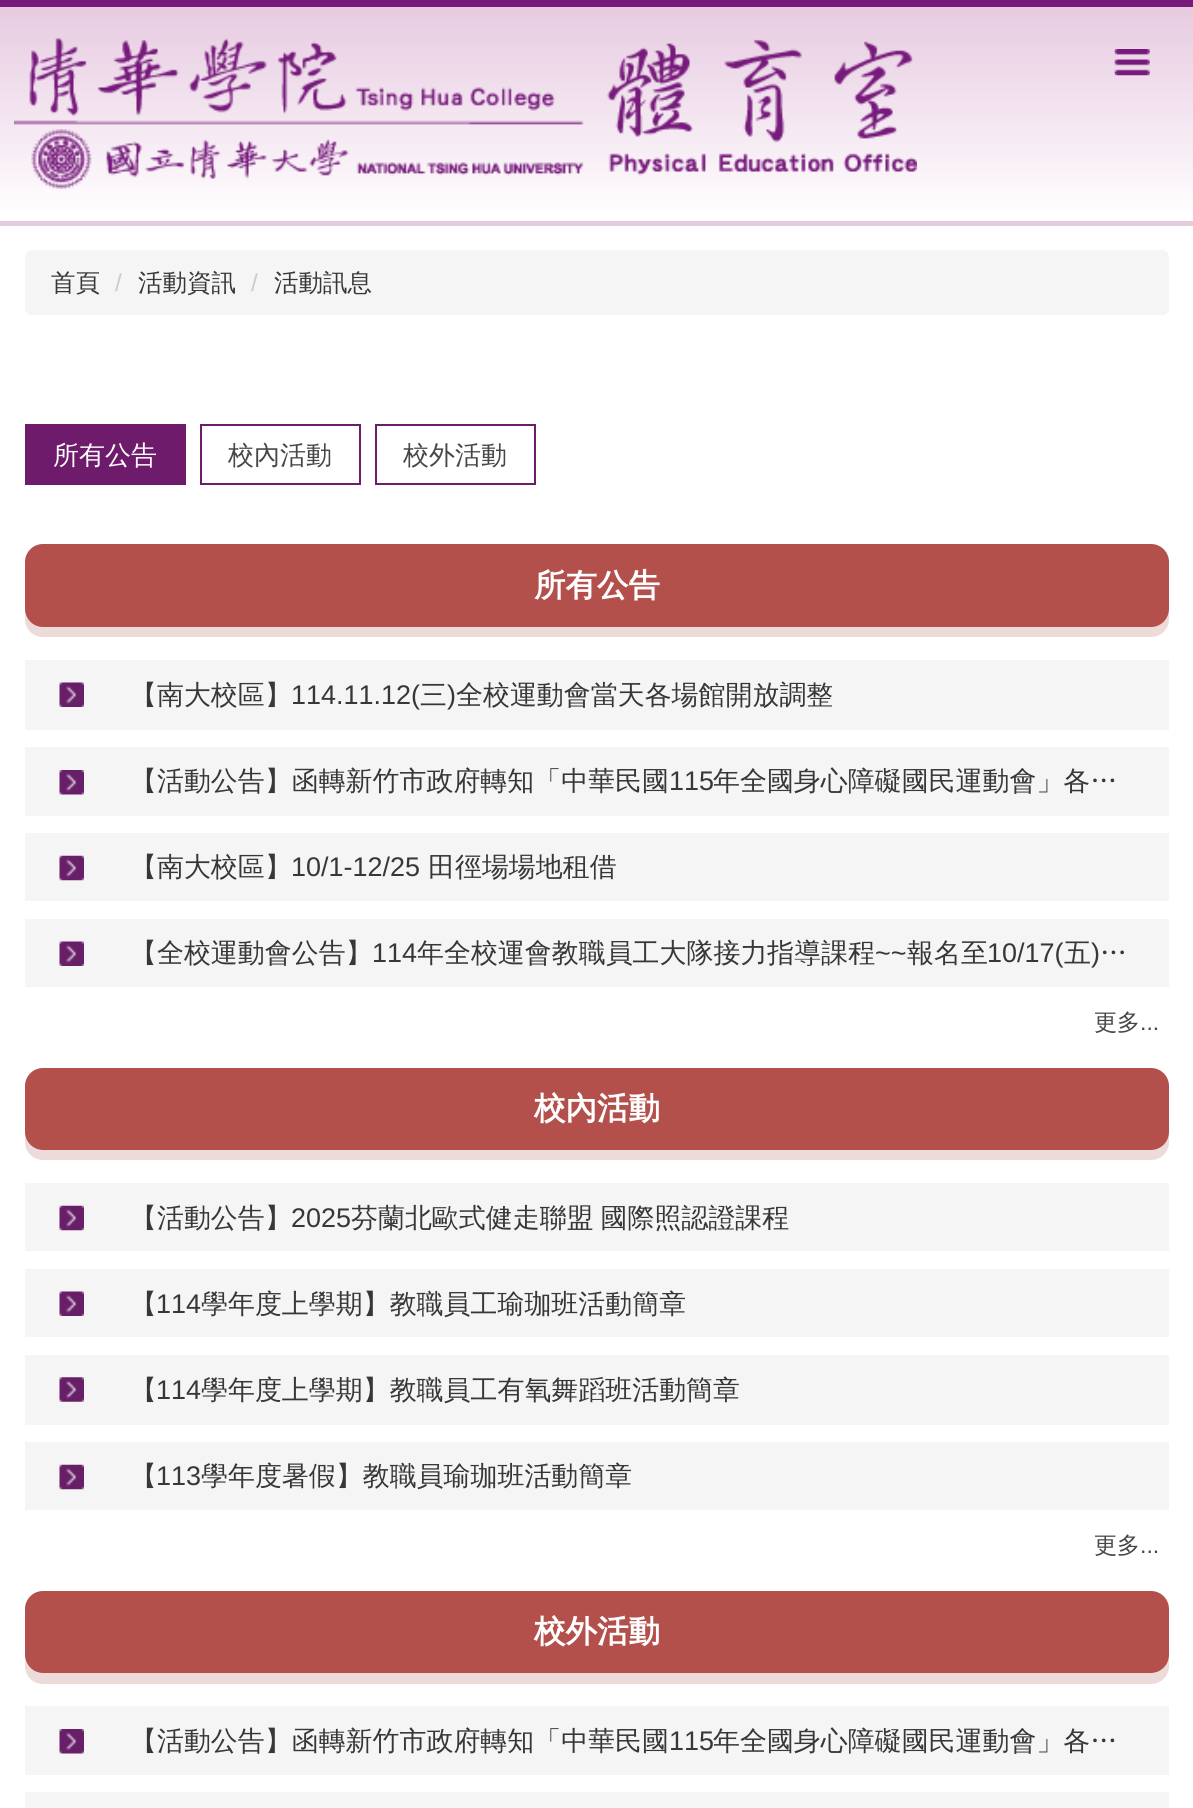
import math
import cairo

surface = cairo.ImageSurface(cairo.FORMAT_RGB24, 1193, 1808)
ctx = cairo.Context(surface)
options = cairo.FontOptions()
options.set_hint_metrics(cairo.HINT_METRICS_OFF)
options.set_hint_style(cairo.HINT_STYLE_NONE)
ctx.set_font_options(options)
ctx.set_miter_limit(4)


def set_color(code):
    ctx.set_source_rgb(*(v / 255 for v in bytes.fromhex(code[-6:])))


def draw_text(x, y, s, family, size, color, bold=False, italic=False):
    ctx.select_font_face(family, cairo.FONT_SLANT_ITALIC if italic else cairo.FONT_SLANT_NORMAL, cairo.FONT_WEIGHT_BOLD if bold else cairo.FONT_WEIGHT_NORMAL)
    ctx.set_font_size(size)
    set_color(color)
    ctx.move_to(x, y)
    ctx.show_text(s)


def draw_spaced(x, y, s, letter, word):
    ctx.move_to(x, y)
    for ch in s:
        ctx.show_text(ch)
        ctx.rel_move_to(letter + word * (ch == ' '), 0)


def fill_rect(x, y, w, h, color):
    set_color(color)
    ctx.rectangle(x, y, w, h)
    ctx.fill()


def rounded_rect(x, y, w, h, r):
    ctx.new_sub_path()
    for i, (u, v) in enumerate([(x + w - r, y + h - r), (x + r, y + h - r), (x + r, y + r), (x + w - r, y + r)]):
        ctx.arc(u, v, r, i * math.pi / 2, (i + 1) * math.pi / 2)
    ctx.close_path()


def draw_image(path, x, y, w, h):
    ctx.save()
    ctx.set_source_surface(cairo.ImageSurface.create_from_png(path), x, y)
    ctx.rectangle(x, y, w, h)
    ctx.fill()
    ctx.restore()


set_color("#ffffff")
ctx.paint()
fill_rect(0, 0, 1193, 7, "#761b7b")
gradient = cairo.LinearGradient(597, 7, 597, 221)
gradient.add_color_stop_rgba(0, 0.906, 0.796, 0.882, 1)
gradient.add_color_stop_rgba(1, 1, 1, 1, 1)
ctx.set_source(gradient)
ctx.rectangle(0, 7, 1193, 204)
ctx.fill()
fill_rect(0, 221, 1193, 5, "#e4ccdf")
draw_image("assets/img1.png", 14, 38, 903, 151)
draw_image("assets/img2.png", 1114, 49, 36, 27)
set_color("#f5f5f5")
rounded_rect(25, 250, 1144, 65, 7)
ctx.fill()
draw_text(51, 291, "首頁", "WenQuanYi Zen Hei Medium", 24.5, "#373737")
draw_text(115, 291, "/", "Liberation Sans", 24.5, "#cccccc")
draw_text(138, 291, "活動資訊", "WenQuanYi Zen Hei Medium", 24.5, "#373737")
draw_text(251, 291, "/", "Liberation Sans", 24.5, "#cccccc")
draw_text(274, 291, "活動訊息", "WenQuanYi Zen Hei Medium", 24.5, "#373737")
fill_rect(25, 424, 161, 61, "#6f1b6c")
draw_text(53, 464, "所有公告", "WenQuanYi Zen Hei Medium", 26, "#ffffff")
ctx.rectangle(201, 425, 159, 59)
set_color("#6f1b6c")
ctx.stroke()
draw_text(228, 464, "校內活動", "WenQuanYi Zen Hei Medium", 26, "#484747")
ctx.rectangle(376, 425, 159, 59)
set_color("#6f1b6c")
ctx.stroke()
draw_text(403, 464, "校外活動", "WenQuanYi Zen Hei Medium", 26, "#484747")
set_color("#eddbda")
ctx.new_path()
ctx.move_to(25, 613)
ctx.line_to(25, 619)
ctx.curve_to(25, 629, 33, 637, 43, 637)
ctx.line_to(1151, 637)
ctx.curve_to(1161, 637, 1169, 629, 1169, 619)
ctx.line_to(1169, 609)
ctx.curve_to(1169, 619, 1161, 626, 1152, 626)
ctx.line_to(42, 626)
ctx.curve_to(34, 626, 27, 621, 25, 613)
ctx.close_path()
ctx.fill()
set_color("#b4504c")
rounded_rect(25, 544, 1144, 83, 18)
ctx.fill()
draw_text(534, 596, "所有公告", "WenQuanYi Zen Hei", 31.5, "#ffffff", bold=True)
fill_rect(25, 660, 1144, 70, "#f5f5f5")
draw_image("assets/img3.png", 59, 682, 25, 25)
draw_text(130, 704, "【南大校區】", "WenQuanYi Zen Hei Medium", 26.95, "#373737")
draw_text(291, 704, "114.11.12(", "Liberation Sans", 26.95, "#373737")
draw_text(420, 704, "三", "WenQuanYi Zen Hei Medium", 26.95, "#373737")
draw_text(447, 704, ")", "Liberation Sans", 26.95, "#373737")
draw_text(456, 704, "全校運動會當天各場館開放調整", "WenQuanYi Zen Hei Medium", 26.95, "#373737")
fill_rect(25, 747, 1144, 69, "#f5f5f5")
draw_image("assets/img4.png", 59, 770, 25, 25)
draw_text(130, 790, "【活動公告】函轉新竹市政府轉知「中華民國", "WenQuanYi Zen Hei Medium", 26.95, "#373737")
draw_text(669, 790, "115", "Liberation Sans", 26.95, "#373737")
draw_text(713, 790, "年全國身心障礙國民運動會」各…", "WenQuanYi Zen Hei Medium", 26.95, "#373737")
fill_rect(25, 833, 1144, 68, "#f5f5f5")
draw_image("assets/img5.png", 59, 855, 25, 26)
draw_text(130, 876, "【南大校區】", "WenQuanYi Zen Hei Medium", 26.95, "#373737")
draw_text(291, 876, "10/1-12/25", "Liberation Sans", 26.95, "#373737")
draw_text(428, 876, "田徑場場地租借", "WenQuanYi Zen Hei Medium", 26.95, "#373737")
fill_rect(25, 919, 1144, 68, "#f5f5f5")
draw_image("assets/img3.png", 59, 941, 25, 25)
draw_text(130, 962, "【全校運動會公告】", "WenQuanYi Zen Hei Medium", 26.95, "#373737")
draw_text(372, 962, "114", "Liberation Sans", 26.95, "#373737")
draw_text(417, 962, "年全校運會教職員工大隊接力指導課程", "WenQuanYi Zen Hei Medium", 26.95, "#373737")
draw_text(875, 962, "~~", "Liberation Sans", 26.95, "#373737")
draw_text(907, 962, "報名至", "WenQuanYi Zen Hei Medium", 26.95, "#373737")
draw_text(987, 962, "10/17(", "Liberation Sans", 26.95, "#373737")
draw_text(1064, 962, "五", "WenQuanYi Zen Hei Medium", 26.95, "#373737")
draw_text(1091, 962, ")", "Liberation Sans", 26.95, "#373737")
draw_text(1100, 962, "…", "WenQuanYi Zen Hei Medium", 26.95, "#373737")
draw_text(1094, 1030, "更多", "WenQuanYi Zen Hei Medium", 23, "#484747")
draw_text(1140, 1030, "...", "Liberation Sans", 23, "#484747")
set_color("#eddbda")
ctx.new_path()
ctx.move_to(25, 1136)
ctx.line_to(25, 1142)
ctx.curve_to(25, 1152, 33, 1160, 43, 1160)
ctx.line_to(1151, 1160)
ctx.curve_to(1161, 1160, 1169, 1152, 1169, 1142)
ctx.line_to(1169, 1132)
ctx.curve_to(1169, 1142, 1161, 1150, 1152, 1150)
ctx.line_to(42, 1150)
ctx.curve_to(34, 1150, 27, 1144, 25, 1136)
ctx.close_path()
ctx.fill()
set_color("#b4504c")
rounded_rect(25, 1068, 1144, 82, 18)
ctx.fill()
draw_text(534, 1119, "校內活動", "WenQuanYi Zen Hei", 31.5, "#ffffff", bold=True)
fill_rect(25, 1183, 1144, 68, "#f5f5f5")
draw_image("assets/img5.png", 59, 1205, 25, 26)
draw_text(130, 1227, "【活動公告】", "WenQuanYi Zen Hei Medium", 26.95, "#373737")
draw_text(291, 1227, "2025", "Liberation Sans", 26.95, "#373737")
ctx.select_font_face("WenQuanYi Zen Hei Medium")
draw_spaced(351, 1227, "芬蘭北歐式健走聯盟 國際照認證課程", 0, -1)
fill_rect(25, 1269, 1144, 68, "#f5f5f5")
draw_image("assets/img3.png", 59, 1291, 25, 25)
draw_text(130, 1313, "【", "WenQuanYi Zen Hei Medium", 26.95, "#373737")
draw_text(156, 1313, "114", "Liberation Sans", 26.95, "#373737")
draw_text(201, 1313, "學年度上學期】教職員工瑜珈班活動簡章", "WenQuanYi Zen Hei Medium", 26.95, "#373737")
fill_rect(25, 1355, 1144, 70, "#f5f5f5")
draw_image("assets/img6.png", 59, 1377, 25, 25)
draw_text(130, 1399, "【", "WenQuanYi Zen Hei Medium", 26.95, "#373737")
draw_text(156, 1399, "114", "Liberation Sans", 26.95, "#373737")
draw_text(201, 1399, "學年度上學期】教職員工有氧舞蹈班活動簡章", "WenQuanYi Zen Hei Medium", 26.95, "#373737")
fill_rect(25, 1442, 1144, 68, "#f5f5f5")
draw_image("assets/img5.png", 59, 1464, 25, 26)
draw_text(130, 1485, "【", "WenQuanYi Zen Hei Medium", 26.95, "#373737")
draw_text(156, 1485, "113", "Liberation Sans", 26.95, "#373737")
draw_text(201, 1485, "學年度暑假】教職員瑜珈班活動簡章", "WenQuanYi Zen Hei Medium", 26.95, "#373737")
draw_text(1094, 1553, "更多", "WenQuanYi Zen Hei Medium", 23, "#484747")
draw_text(1140, 1553, "...", "Liberation Sans", 23, "#484747")
set_color("#eddbda")
ctx.new_path()
ctx.move_to(25, 1660)
ctx.line_to(25, 1666)
ctx.curve_to(25, 1676, 33, 1684, 43, 1684)
ctx.line_to(1151, 1684)
ctx.curve_to(1161, 1684, 1169, 1676, 1169, 1666)
ctx.line_to(1169, 1656)
ctx.curve_to(1169, 1665, 1161, 1673, 1152, 1673)
ctx.line_to(42, 1673)
ctx.curve_to(34, 1673, 27, 1667, 25, 1660)
ctx.close_path()
ctx.fill()
set_color("#b4504c")
rounded_rect(25, 1591, 1144, 82, 18)
ctx.fill()
draw_text(534, 1642, "校外活動", "WenQuanYi Zen Hei", 31.5, "#ffffff", bold=True)
fill_rect(25, 1706, 1144, 69, "#f5f5f5")
draw_image("assets/img4.png", 59, 1729, 25, 25)
draw_text(130, 1750, "【活動公告】函轉新竹市政府轉知「中華民國", "WenQuanYi Zen Hei Medium", 26.95, "#373737")
draw_text(669, 1750, "115", "Liberation Sans", 26.95, "#373737")
draw_text(713, 1750, "年全國身心障礙國民運動會」各…", "WenQuanYi Zen Hei Medium", 26.95, "#373737")
fill_rect(25, 1792, 1144, 16, "#f5f5f5")
surface.write_to_png("output.png")
